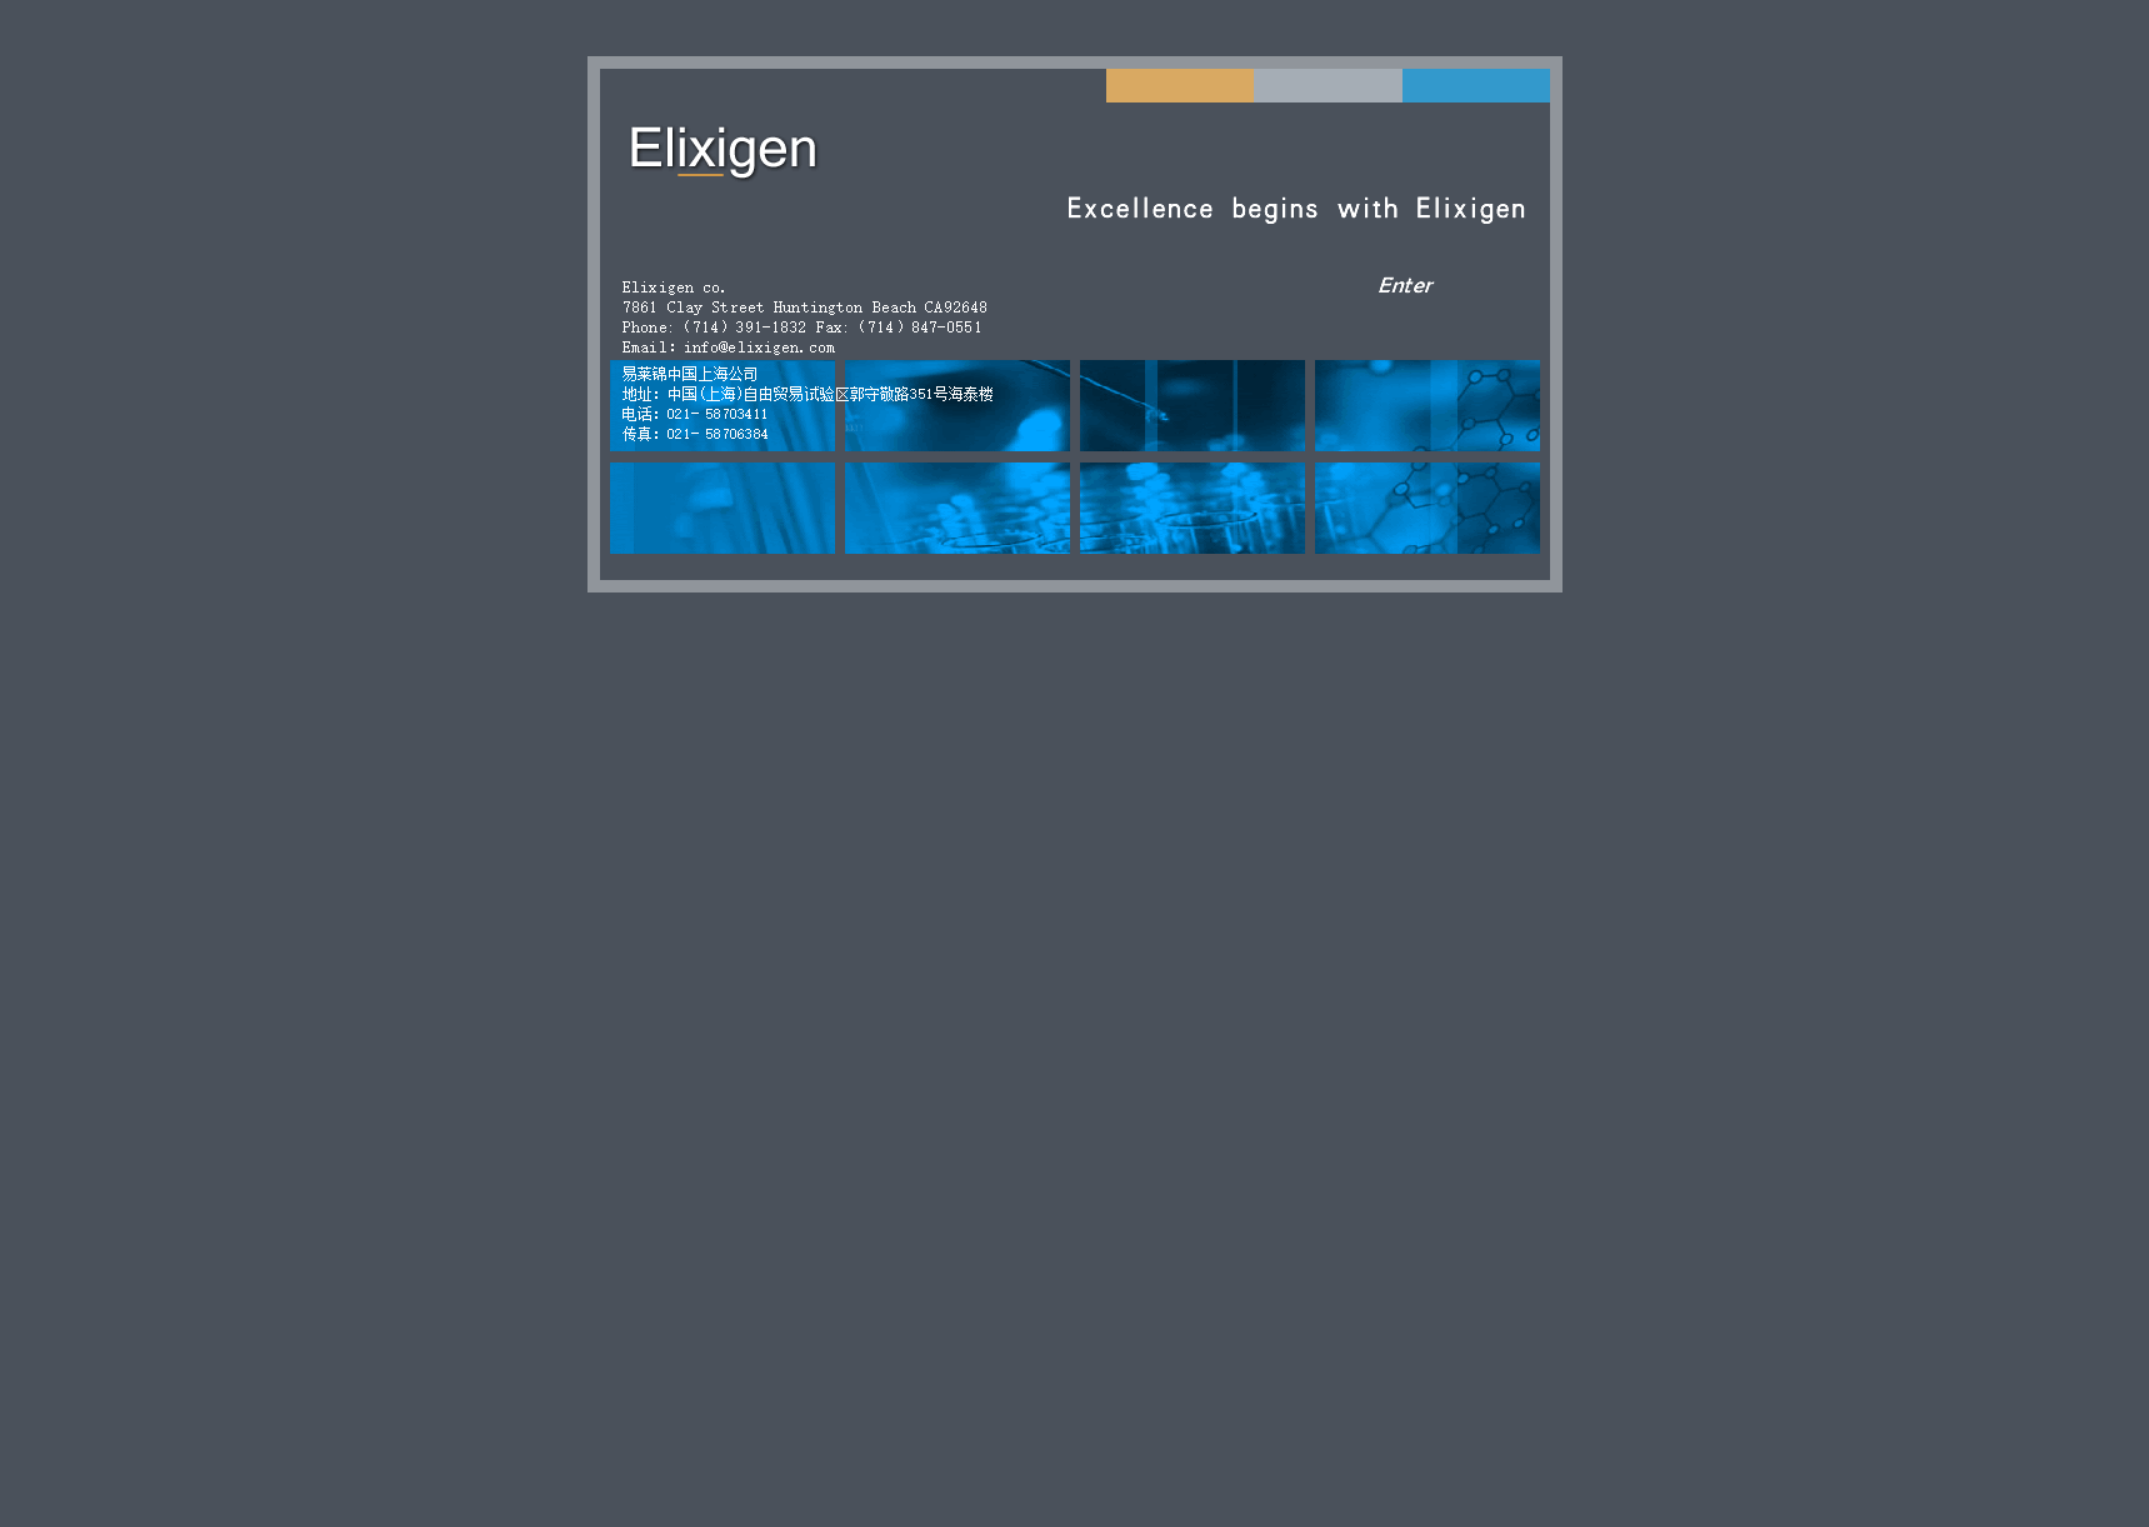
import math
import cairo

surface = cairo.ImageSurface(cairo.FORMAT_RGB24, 2149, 1527)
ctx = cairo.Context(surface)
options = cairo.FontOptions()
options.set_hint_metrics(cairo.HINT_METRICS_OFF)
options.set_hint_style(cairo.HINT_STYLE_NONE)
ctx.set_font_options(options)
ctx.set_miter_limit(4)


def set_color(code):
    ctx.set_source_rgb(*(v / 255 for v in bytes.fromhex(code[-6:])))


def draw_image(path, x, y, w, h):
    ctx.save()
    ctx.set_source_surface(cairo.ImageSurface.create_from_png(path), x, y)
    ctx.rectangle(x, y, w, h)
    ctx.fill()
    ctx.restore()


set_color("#4a515b")
ctx.paint()
draw_image("assets/img1.png", 587, 56, 976, 537)
surface.write_to_png("output.png")
